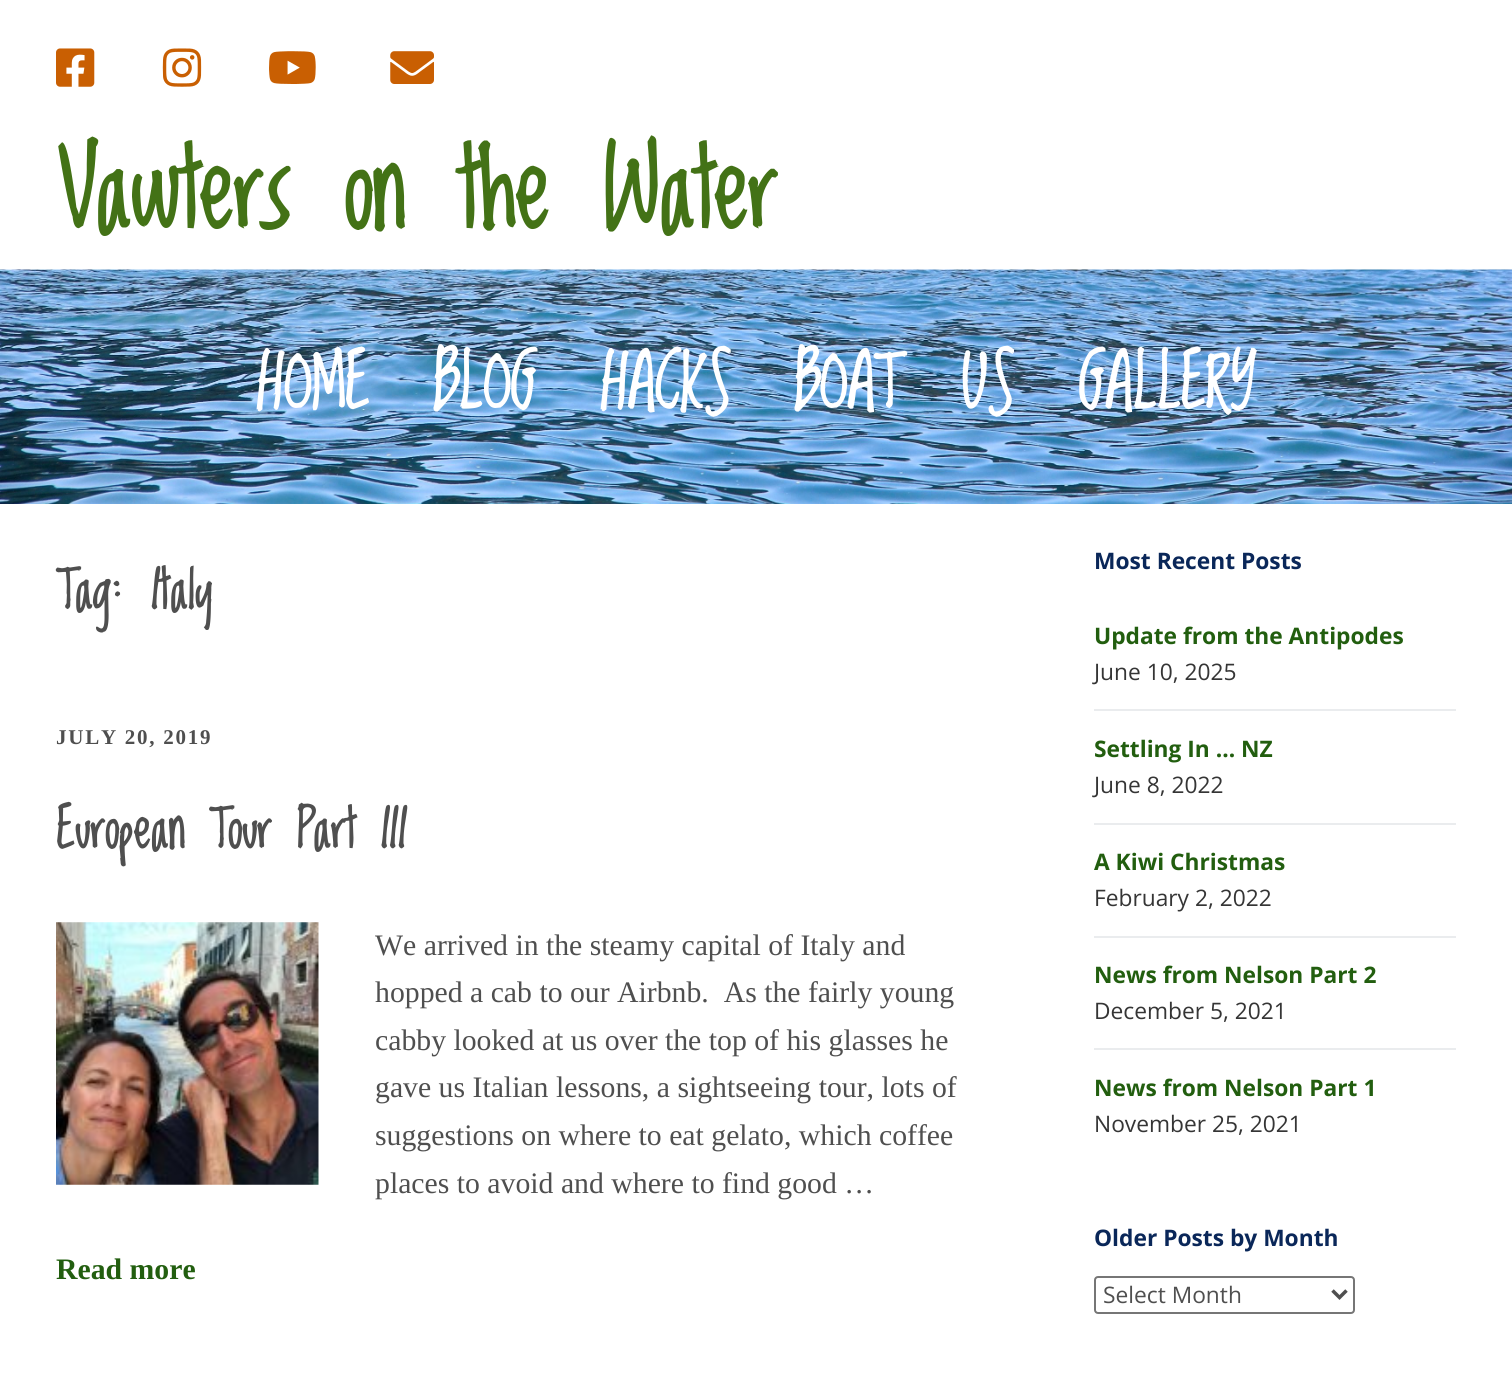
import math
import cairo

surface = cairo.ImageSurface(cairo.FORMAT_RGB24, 1512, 1374)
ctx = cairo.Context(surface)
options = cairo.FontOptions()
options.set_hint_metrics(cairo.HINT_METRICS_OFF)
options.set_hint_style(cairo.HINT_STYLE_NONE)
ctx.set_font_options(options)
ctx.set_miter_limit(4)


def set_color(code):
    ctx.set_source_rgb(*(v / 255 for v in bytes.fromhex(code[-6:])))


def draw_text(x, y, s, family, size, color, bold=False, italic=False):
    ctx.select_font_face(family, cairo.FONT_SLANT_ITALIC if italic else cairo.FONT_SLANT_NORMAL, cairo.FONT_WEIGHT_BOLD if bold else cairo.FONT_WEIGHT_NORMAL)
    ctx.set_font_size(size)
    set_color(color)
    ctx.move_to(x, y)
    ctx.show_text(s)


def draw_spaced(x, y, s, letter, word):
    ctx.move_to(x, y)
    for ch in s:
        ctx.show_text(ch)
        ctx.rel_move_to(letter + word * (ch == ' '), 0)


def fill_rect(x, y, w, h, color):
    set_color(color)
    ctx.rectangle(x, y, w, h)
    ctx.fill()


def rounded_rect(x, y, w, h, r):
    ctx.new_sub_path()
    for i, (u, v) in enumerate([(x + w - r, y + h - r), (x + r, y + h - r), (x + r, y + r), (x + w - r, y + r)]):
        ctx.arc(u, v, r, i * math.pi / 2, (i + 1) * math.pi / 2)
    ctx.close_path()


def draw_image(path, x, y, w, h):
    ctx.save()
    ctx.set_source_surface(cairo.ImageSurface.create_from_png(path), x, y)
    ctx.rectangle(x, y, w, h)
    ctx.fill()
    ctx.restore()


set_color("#ffffff")
ctx.paint()
draw_image("assets/img1.png", 56, 48, 39, 39)
draw_image("assets/img2.png", 162, 48, 40, 39)
draw_image("assets/img3.png", 269, 51, 47, 33)
draw_image("assets/img4.png", 390, 51, 44, 33)
draw_text(56, 228, "Vawters on the Water", "Loved by the King", 105, "#437216", bold=True)
draw_image("assets/img5.png", 0, 269, 1512, 235)
draw_text(257, 408, "HOME", "Loved by the King", 70, "#ffffff", bold=True)
draw_text(433, 408, "BLOG", "Loved by the King", 70, "#ffffff", bold=True)
draw_text(601, 408, "HACKS", "Loved by the King", 70, "#ffffff", bold=True)
draw_text(794, 408, "BOAT", "Loved by the King", 70, "#ffffff", bold=True)
draw_text(961, 408, "US", "Loved by the King", 70, "#ffffff", bold=True)
draw_text(1078, 408, "GALLERY", "Loved by the King", 70, "#ffffff", bold=True)
draw_text(56, 609, "Tag: Italy", "Loved by the King", 52.5, "#4f4f4f", bold=True)
ctx.select_font_face("Liberation Serif", cairo.FONT_SLANT_NORMAL, cairo.FONT_WEIGHT_BOLD)
ctx.set_font_size(21)
draw_spaced(56, 744, "JULY 20, 2019", 1.75, 0)
ctx.select_font_face("Loved by the King", cairo.FONT_SLANT_NORMAL, cairo.FONT_WEIGHT_BOLD)
ctx.set_font_size(52.5)
draw_spaced(56, 848, "European Tour Part III", 0, -2)
draw_image("assets/img6.png", 56, 922, 263, 263)
draw_text(375, 955, "We arrived in the steamy capital of Italy and", "Liberation Serif", 29.75, "#4f4f4f")
draw_text(375, 1002, "hopped a cab to our Airbnb.  As the fairly young", "Liberation Serif", 29.75, "#4f4f4f")
draw_text(375, 1050, "cabby looked at us over the top of his glasses he", "Liberation Serif", 29.75, "#4f4f4f")
draw_text(375, 1097, "gave us Italian lessons, a sightseeing tour, lots of", "Liberation Serif", 29.75, "#4f4f4f")
draw_text(375, 1145, "suggestions on where to eat gelato, which coffee", "Liberation Serif", 29.75, "#4f4f4f")
draw_text(375, 1193, "places to avoid and where to find good …", "Liberation Serif", 29.75, "#4f4f4f")
draw_text(56, 1279, "Read more", "Liberation Serif", 29.75, "#225e0f", bold=True)
draw_text(1094, 569, "Most Recent Posts", "Open Sans", 22.75, "#0a2759", bold=True)
fill_rect(1094, 709, 362, 2, "#eaecee")
draw_text(1094, 644, "Update from the Antipodes", "Open Sans", 22.75, "#225e0f", bold=True)
draw_text(1094, 680, "June 10, 2025", "Open Sans", 22.75, "#353535")
fill_rect(1094, 823, 362, 2, "#eaecee")
draw_text(1094, 757, "Settling In … NZ", "Open Sans", 22.75, "#225e0f", bold=True)
draw_text(1094, 793, "June 8, 2022", "Open Sans", 22.75, "#353535")
fill_rect(1094, 936, 362, 2, "#eaecee")
draw_text(1094, 870, "A Kiwi Christmas", "Open Sans", 22.75, "#225e0f", bold=True)
draw_text(1094, 906, "February 2, 2022", "Open Sans", 22.75, "#353535")
fill_rect(1094, 1048, 362, 2, "#eaecee")
draw_text(1094, 983, "News from Nelson Part 2", "Open Sans", 22.75, "#225e0f", bold=True)
draw_text(1094, 1019, "December 5, 2021", "Open Sans", 22.75, "#353535")
draw_text(1094, 1096, "News from Nelson Part 1", "Open Sans", 22.75, "#225e0f", bold=True)
draw_text(1094, 1132, "November 25, 2021", "Open Sans", 22.75, "#353535")
draw_text(1094, 1246, "Older Posts by Month", "Open Sans", 22.75, "#0a2759", bold=True)
rounded_rect(1095, 1277, 259, 36, 3)
set_color("#767676")
ctx.stroke()
ctx.new_path()
ctx.move_to(1332.5, 1290.5)
ctx.line_to(1339.5, 1297.5)
ctx.line_to(1346.5, 1290.5)
set_color("#4f4f4f")
ctx.set_line_width(3.5)
ctx.stroke()
draw_text(1103, 1303, "Select Month", "Open Sans", 22.75, "#4f4f4f")
surface.write_to_png("output.png")
